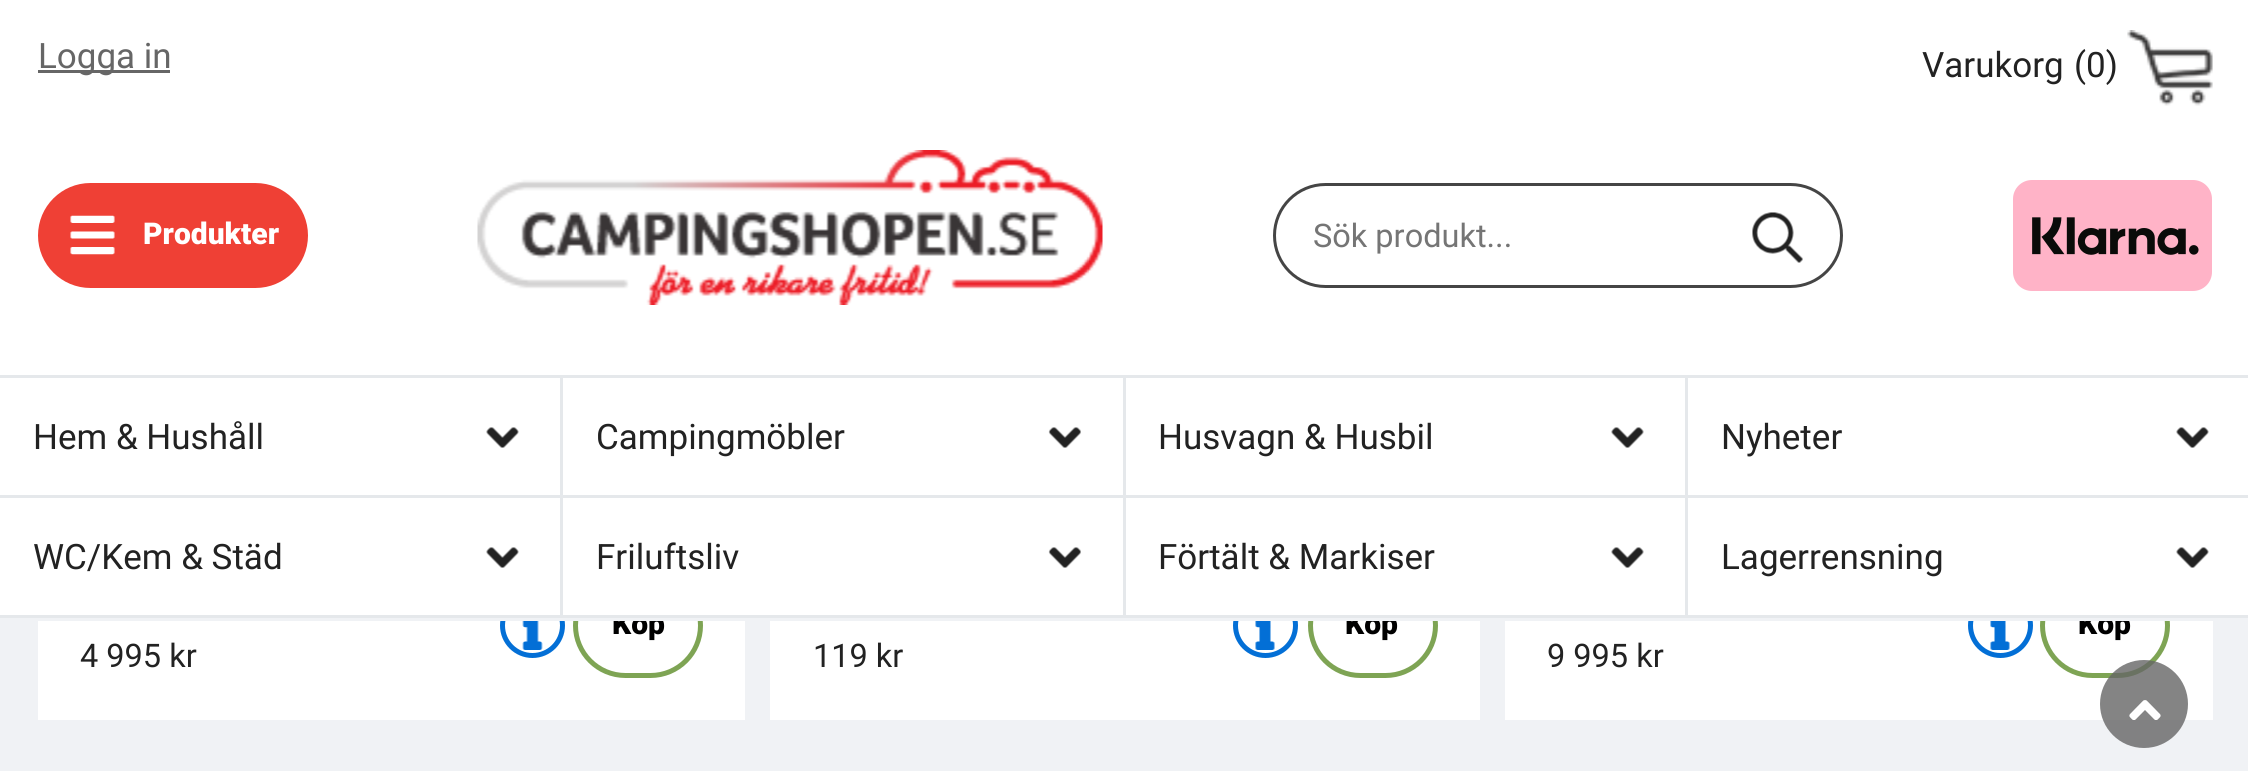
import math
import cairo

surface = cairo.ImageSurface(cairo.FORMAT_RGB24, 2248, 771)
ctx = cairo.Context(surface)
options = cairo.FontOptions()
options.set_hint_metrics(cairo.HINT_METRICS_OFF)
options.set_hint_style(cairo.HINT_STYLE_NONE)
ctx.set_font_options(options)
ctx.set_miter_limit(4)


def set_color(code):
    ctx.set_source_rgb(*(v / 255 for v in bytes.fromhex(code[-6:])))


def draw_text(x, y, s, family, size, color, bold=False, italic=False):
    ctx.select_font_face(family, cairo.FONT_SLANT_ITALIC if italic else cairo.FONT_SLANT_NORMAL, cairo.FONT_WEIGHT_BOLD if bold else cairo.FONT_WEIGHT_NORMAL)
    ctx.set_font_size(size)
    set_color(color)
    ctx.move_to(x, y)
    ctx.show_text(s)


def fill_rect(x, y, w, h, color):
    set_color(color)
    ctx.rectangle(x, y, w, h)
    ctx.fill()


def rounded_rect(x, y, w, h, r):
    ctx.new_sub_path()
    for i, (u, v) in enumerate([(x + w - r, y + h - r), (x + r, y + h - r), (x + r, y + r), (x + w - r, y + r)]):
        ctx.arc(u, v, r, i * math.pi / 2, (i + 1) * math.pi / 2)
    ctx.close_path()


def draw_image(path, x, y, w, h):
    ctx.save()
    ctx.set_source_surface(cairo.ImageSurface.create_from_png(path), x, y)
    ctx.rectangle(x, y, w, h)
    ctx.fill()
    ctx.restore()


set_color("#f0f2f5")
ctx.paint()
fill_rect(38, 621, 707, 99, "#ffffff")
ctx.arc(532.5, 625.5, 30, 0, 2 * math.pi)
set_color("#036fd6")
ctx.set_line_width(5)
ctx.stroke()
rounded_rect(575.5, 575.5, 125, 100, 50)
set_color("#7ea454")
ctx.stroke()
draw_text(612, 634, "Köp", "Roboto Black", 30, "#000000")
fill_rect(770, 621, 710, 99, "#ffffff")
ctx.new_path()
ctx.arc(1265.5, 625.5, 30, 0, 2 * math.pi)
set_color("#036fd6")
ctx.stroke()
rounded_rect(1310.5, 575.5, 125, 100, 50)
set_color("#7ea454")
ctx.stroke()
draw_text(1345, 634, "Köp", "Roboto Black", 30, "#000000")
fill_rect(1505, 621, 708, 99, "#ffffff")
ctx.new_path()
ctx.arc(2000.5, 625.5, 30, 0, 2 * math.pi)
set_color("#036fd6")
ctx.stroke()
rounded_rect(2042.5, 575.5, 125, 100, 50)
set_color("#7ea454")
ctx.stroke()
draw_text(2078, 634, "Köp", "Roboto Black", 30, "#000000")
fill_rect(0, 0, 2248, 615, "#ffffff")
fill_rect(500, 618, 1670, 3, "#f0f2f5")
fill_rect(38, 70, 132, 3, "#666666")
draw_text(38, 68, "Logga in", "Roboto", 35, "#666666")
draw_text(1922, 77, "Varukorg", "Roboto", 35, "#222222")
draw_text(2074, 77, "(0)", "Roboto", 35, "#222222")
draw_image("assets/img1.png", 2127, 30, 86, 76)
set_color("#ef4035")
rounded_rect(38, 183, 270, 105, 52.5)
ctx.fill()
draw_image("assets/img2.png", 70, 215, 45, 40)
draw_text(143, 244, "Produkter", "Roboto Black", 30, "#ffffff")
draw_image("assets/img3.png", 477, 150, 626, 155)
rounded_rect(1274.5, 184.5, 567, 102, 51)
set_color("#454545")
ctx.set_line_width(3)
ctx.stroke()
draw_text(1313, 247, "Sök produkt...", "Roboto", 32.5, "#757575")
draw_image("assets/img4.png", 1752, 212, 51, 51)
draw_image("assets/img5.png", 2013, 180, 199, 111)
fill_rect(0, 375, 1125, 3, "#e5e8eb")
fill_rect(560, 375, 3, 243, "#e5e8eb")
fill_rect(0, 495, 563, 3, "#e5e8eb")
draw_text(33, 449, "Hem & Hushåll", "Roboto", 35, "#222222")
draw_image("assets/img6.png", 486, 427, 33, 21)
fill_rect(1123, 375, 3, 243, "#e5e8eb")
fill_rect(563, 495, 562, 3, "#e5e8eb")
draw_text(596, 449, "Campingmöbler", "Roboto", 35, "#222222")
draw_image("assets/img7.png", 1048, 427, 33, 21)
fill_rect(1125, 375, 1123, 3, "#e5e8eb")
fill_rect(1685, 375, 3, 243, "#e5e8eb")
fill_rect(1125, 495, 1123, 3, "#e5e8eb")
draw_text(1158, 449, "Husvagn & Husbil", "Roboto", 35, "#222222")
draw_image("assets/img6.png", 1611, 427, 33, 21)
draw_text(1721, 449, "Nyheter", "Roboto", 35, "#222222")
draw_image("assets/img6.png", 2176, 427, 33, 21)
fill_rect(0, 615, 2248, 3, "#e5e8eb")
draw_text(33, 569, "WC/Kem & Städ", "Roboto", 35, "#222222")
draw_image("assets/img6.png", 486, 547, 33, 21)
draw_text(596, 569, "Friluftsliv", "Roboto", 35, "#222222")
draw_image("assets/img7.png", 1048, 547, 33, 21)
draw_text(1158, 569, "Förtält & Markiser", "Roboto", 35, "#222222")
draw_image("assets/img6.png", 1611, 547, 33, 21)
draw_text(1721, 569, "Lagerrensning", "Roboto", 35, "#222222")
draw_image("assets/img6.png", 2176, 547, 33, 21)
draw_image("assets/img8.png", 522, 621, 21, 29)
draw_text(80, 667, "4 995 kr", "Roboto", 32.5, "#222222")
draw_image("assets/img9.png", 1255, 621, 20, 29)
draw_text(813, 667, "119 kr", "Roboto", 32.5, "#222222")
draw_image("assets/img9.png", 1990, 621, 20, 29)
draw_text(1547, 667, "9 995 kr", "Roboto", 32.5, "#222222")
ctx.set_source_rgba(0.4, 0.4, 0.4, 0.8)
ctx.new_path()
ctx.arc(2144, 704, 44, 0, 2 * math.pi)
ctx.fill()
draw_image("assets/img10.png", 2129, 700, 32, 20)
surface.write_to_png("output.png")
